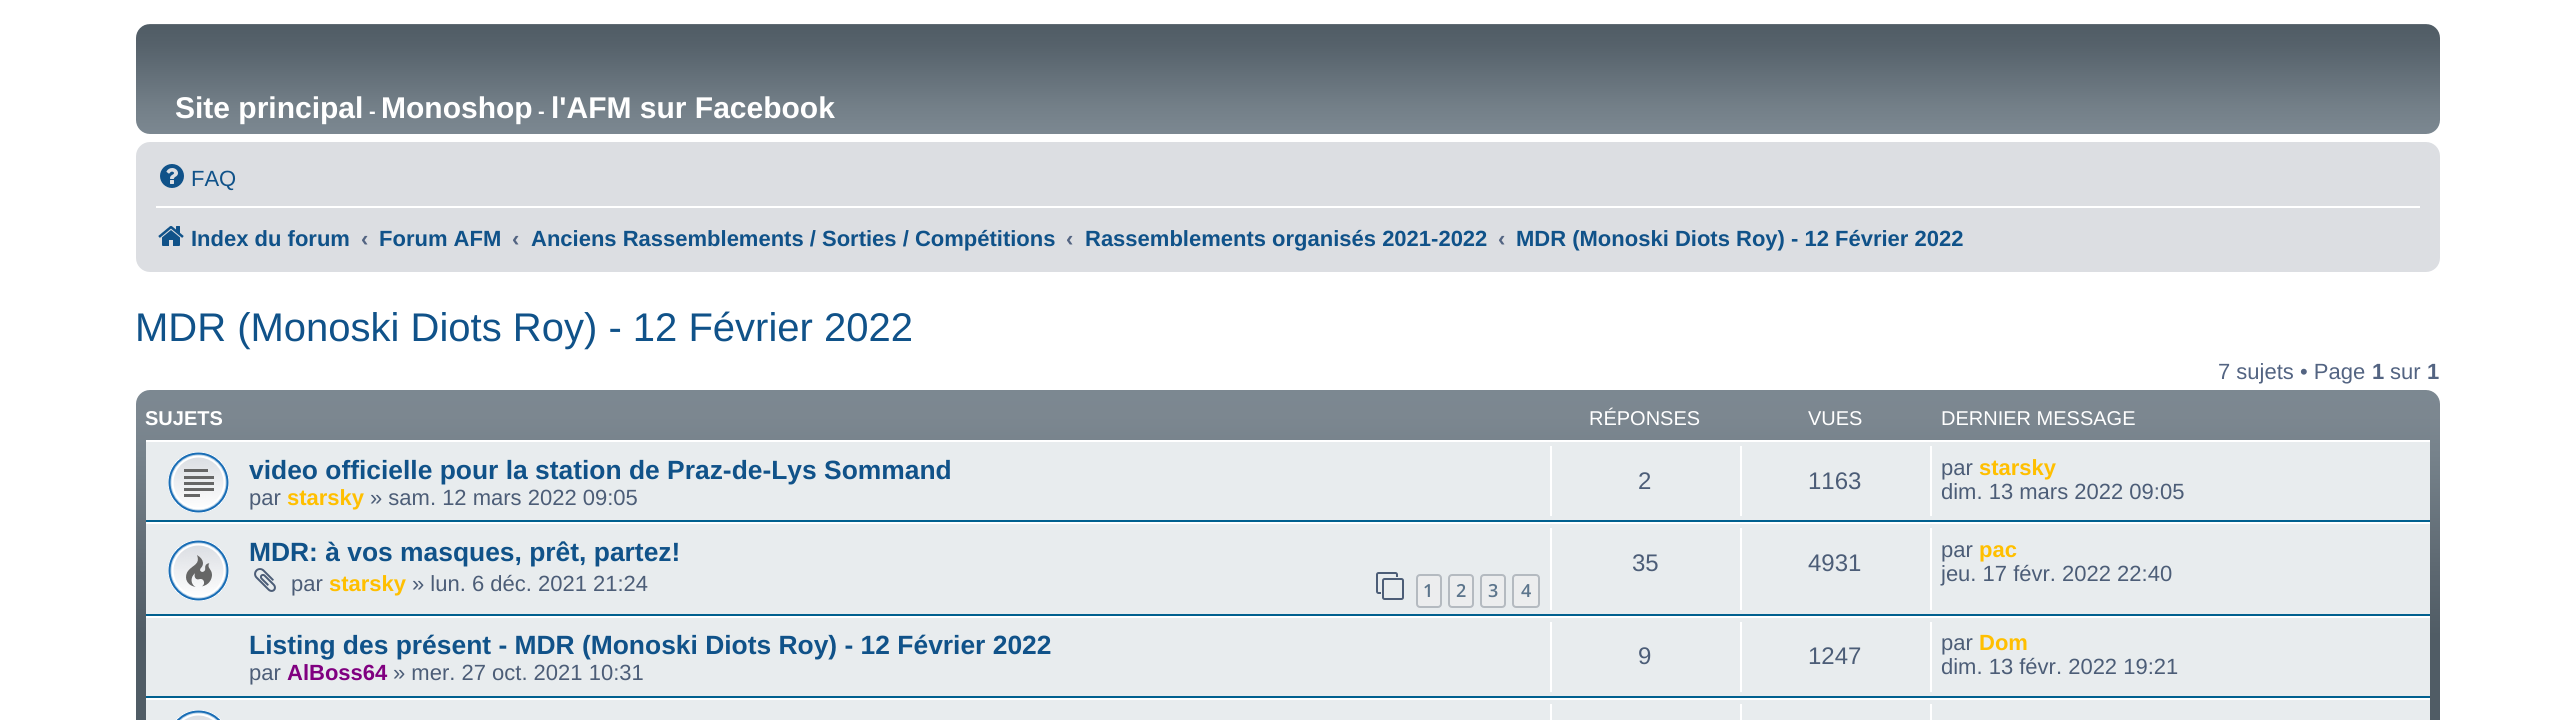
import math
import cairo

surface = cairo.ImageSurface(cairo.FORMAT_RGB24, 2574, 720)
ctx = cairo.Context(surface)
options = cairo.FontOptions()
options.set_hint_metrics(cairo.HINT_METRICS_OFF)
options.set_hint_style(cairo.HINT_STYLE_NONE)
ctx.set_font_options(options)
ctx.set_miter_limit(4)


def set_color(code):
    ctx.set_source_rgb(*(v / 255 for v in bytes.fromhex(code[-6:])))


def draw_text(x, y, s, family, size, color, bold=False, italic=False):
    ctx.select_font_face(family, cairo.FONT_SLANT_ITALIC if italic else cairo.FONT_SLANT_NORMAL, cairo.FONT_WEIGHT_BOLD if bold else cairo.FONT_WEIGHT_NORMAL)
    ctx.set_font_size(size)
    set_color(color)
    ctx.move_to(x, y)
    ctx.show_text(s)


def fill_rect(x, y, w, h, color):
    set_color(color)
    ctx.rectangle(x, y, w, h)
    ctx.fill()


def rounded_rect(x, y, w, h, r):
    ctx.new_sub_path()
    for i, (u, v) in enumerate([(x + w - r, y + h - r), (x + r, y + h - r), (x + r, y + r), (x + w - r, y + r)]):
        ctx.arc(u, v, r, i * math.pi / 2, (i + 1) * math.pi / 2)
    ctx.close_path()


def draw_image(path, x, y, w, h):
    ctx.save()
    ctx.set_source_surface(cairo.ImageSurface.create_from_png(path), x, y)
    ctx.rectangle(x, y, w, h)
    ctx.fill()
    ctx.restore()


set_color("#ffffff")
ctx.paint()
gradient = cairo.LinearGradient(1288, 24, 1288, 134)
gradient.add_color_stop_rgba(0, 0.431, 0.467, 0.498, 1)
gradient.add_color_stop_rgba(0.01, 0.314, 0.361, 0.396, 1)
gradient.add_color_stop_rgba(0.2, 0.337, 0.384, 0.42, 1)
gradient.add_color_stop_rgba(0.75, 0.451, 0.498, 0.533, 1)
gradient.add_color_stop_rgba(1, 0.486, 0.533, 0.569, 1)
ctx.set_source(gradient)
rounded_rect(136, 24, 2304, 110, 14)
ctx.fill()
draw_text(175, 118, "Site principal", "Liberation Sans", 30, "#ffffff", bold=True)
draw_text(369, 118, "-", "Liberation Sans", 20, "#ffffff", bold=True)
draw_text(381, 118, "Monoshop", "Liberation Sans", 30, "#ffffff", bold=True)
draw_text(538, 118, "-", "Liberation Sans", 20, "#ffffff", bold=True)
draw_text(551, 118, "l'AFM sur Facebook", "Liberation Sans", 30, "#ffffff", bold=True)
set_color("#dcdee2")
rounded_rect(136, 142, 2304, 130, 14)
ctx.fill()
draw_image("assets/img1.png", 160, 164, 24, 24)
draw_text(191, 186, "FAQ", "Liberation Sans", 22, "#105289")
fill_rect(156, 206, 2264, 2, "#ffffff")
draw_image("assets/img2.png", 158, 226, 26, 20)
draw_text(191, 246, "Index du forum", "Liberation Sans", 22, "#105289", bold=True)
draw_text(361, 246, "‹", "Liberation Sans", 22, "#536482", bold=True)
draw_text(379, 246, "Forum AFM", "Liberation Sans", 22, "#105289", bold=True)
draw_text(512, 246, "‹", "Liberation Sans", 22, "#536482", bold=True)
draw_text(531, 246, "Anciens Rassemblements / Sorties / Compétitions", "Liberation Sans", 22, "#105289", bold=True)
draw_text(1066, 246, "‹", "Liberation Sans", 22, "#536482", bold=True)
draw_text(1085, 246, "Rassemblements organisés 2021-2022", "Liberation Sans", 22, "#105289", bold=True)
draw_text(1498, 246, "‹", "Liberation Sans", 22, "#536482", bold=True)
draw_text(1516, 246, "MDR (Monoski Diots Roy) - 12 Février 2022", "Liberation Sans", 22, "#105289", bold=True)
draw_text(135, 341, "MDR (Monoski Diots Roy) - 12 Février 2022", "Liberation Sans", 40, "#105289")
draw_text(2218, 379, "7 sujets • Page", "Liberation Sans", 22, "#536482")
draw_text(2372, 379, "1", "Liberation Sans", 22, "#536482", bold=True)
draw_text(2390, 379, "sur", "Liberation Sans", 22, "#536482")
draw_text(2427, 379, "1", "Liberation Sans", 22, "#536482", bold=True)
gradient = cairo.LinearGradient(1288, 390, 1288, 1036)
gradient.add_color_stop_rgba(0, 0.486, 0.533, 0.569, 1)
gradient.add_color_stop_rgba(0.04, 0.486, 0.529, 0.565, 1)
gradient.add_color_stop_rgba(0.1, 0.463, 0.51, 0.545, 1)
gradient.add_color_stop_rgba(0.29, 0.357, 0.4, 0.435, 1)
gradient.add_color_stop_rgba(0.38, 0.314, 0.361, 0.396, 1)
gradient.add_color_stop_rgba(1, 0.314, 0.361, 0.396, 1)
ctx.set_source(gradient)
rounded_rect(136, 390, 2304, 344, 14)
ctx.fill()
draw_text(145, 425, "SUJETS", "Liberation Sans", 20, "#ffffff", bold=True)
draw_text(1589, 425, "RÉPONSES", "Liberation Sans", 20, "#ffffff")
draw_text(1808, 425, "VUES", "Liberation Sans", 20, "#ffffff")
draw_text(1941, 425, "DERNIER MESSAGE", "Liberation Sans", 20, "#ffffff")
fill_rect(146, 442, 2284, 78, "#e8ecee")
fill_rect(146, 440, 2284, 2, "#ffffff")
fill_rect(146, 520, 2284, 2, "#00608f")
draw_image("assets/img3.png", 168, 452, 61, 61)
draw_text(249, 479, "video officielle pour la station de Praz-de-Lys Sommand", "Liberation Sans", 26.4, "#105289", bold=True)
draw_text(249, 505, "par", "Liberation Sans", 22, "#4c5d77")
draw_text(287, 505, "starsky", "Liberation Sans", 22, "#ffbf00", bold=True)
draw_text(370, 505, "» sam. 12 mars 2022 09:05", "Liberation Sans", 22, "#4c5d77")
fill_rect(1550, 446, 2, 70, "#ffffff")
draw_text(1638, 489, "2", "Liberation Sans", 24, "#4c5d77")
fill_rect(1740, 446, 2, 70, "#ffffff")
draw_text(1808, 489, "1163", "Liberation Sans", 24, "#4c5d77")
fill_rect(1930, 446, 2, 70, "#ffffff")
draw_text(1941, 475, "par", "Liberation Sans", 22, "#4c5d77")
draw_text(1979, 475, "starsky", "Liberation Sans", 22, "#ffbf00", bold=True)
draw_text(1941, 499, "dim. 13 mars 2022 09:05", "Liberation Sans", 22, "#4c5d77")
fill_rect(146, 524, 2284, 90, "#e8ecee")
fill_rect(146, 522, 2284, 2, "#ffffff")
fill_rect(146, 614, 2284, 2, "#00608f")
draw_image("assets/img4.png", 168, 540, 61, 61)
draw_text(249, 561, "MDR: à vos masques, prêt, partez!", "Liberation Sans", 26.4, "#105289", bold=True)
draw_image("assets/img5.png", 254, 568, 22, 24)
draw_text(291, 591, "par", "Liberation Sans", 22, "#4c5d77")
draw_text(329, 591, "starsky", "Liberation Sans", 22, "#ffbf00", bold=True)
draw_text(412, 591, "» lun. 6 déc. 2021 21:24", "Liberation Sans", 22, "#4c5d77")
draw_image("assets/img6.png", 1376, 572, 28, 28)
set_color("#ecedee")
rounded_rect(1417, 575, 24, 32, 3)
ctx.fill_preserve()
set_color("#b4bac0")
ctx.stroke()
draw_text(1423, 597, "1", "Open Sans SemiBold", 18, "#5c758c")
set_color("#ecedee")
rounded_rect(1449, 575, 24, 32, 3)
ctx.fill_preserve()
set_color("#b4bac0")
ctx.stroke()
draw_text(1456, 597, "2", "Open Sans SemiBold", 18, "#5c758c")
set_color("#ecedee")
rounded_rect(1481, 575, 24, 32, 3)
ctx.fill_preserve()
set_color("#b4bac0")
ctx.stroke()
draw_text(1488, 597, "3", "Open Sans SemiBold", 18, "#5c758c")
set_color("#ecedee")
rounded_rect(1513, 575, 26, 32, 3)
ctx.fill_preserve()
set_color("#b4bac0")
ctx.stroke()
draw_text(1521, 597, "4", "Open Sans SemiBold", 18, "#5c758c")
fill_rect(1550, 528, 2, 82, "#ffffff")
draw_text(1632, 571, "35", "Liberation Sans", 24, "#4c5d77")
fill_rect(1740, 528, 2, 82, "#ffffff")
draw_text(1808, 571, "4931", "Liberation Sans", 24, "#4c5d77")
fill_rect(1930, 528, 2, 82, "#ffffff")
draw_text(1941, 557, "par", "Liberation Sans", 22, "#4c5d77")
draw_text(1979, 557, "pac", "Liberation Sans", 22, "#ffbf00", bold=True)
draw_text(1941, 581, "jeu. 17 févr. 2022 22:40", "Liberation Sans", 22, "#4c5d77")
fill_rect(146, 618, 2284, 78, "#e8ecee")
fill_rect(146, 616, 2284, 2, "#ffffff")
fill_rect(146, 696, 2284, 2, "#00608f")
draw_text(249, 654, "Listing des présent - MDR (Monoski Diots Roy) - 12 Février 2022", "Liberation Sans", 26.4, "#105289", bold=True)
draw_text(249, 680, "par", "Liberation Sans", 22, "#4c5d77")
draw_text(287, 680, "AlBoss64", "Liberation Sans", 22, "#800080", bold=True)
draw_text(393, 680, "» mer. 27 oct. 2021 10:31", "Liberation Sans", 22, "#4c5d77")
fill_rect(1550, 622, 2, 70, "#ffffff")
draw_text(1638, 664, "9", "Liberation Sans", 24, "#4c5d77")
fill_rect(1740, 622, 2, 70, "#ffffff")
draw_text(1808, 664, "1247", "Liberation Sans", 24, "#4c5d77")
fill_rect(1930, 622, 2, 70, "#ffffff")
draw_text(1941, 650, "par", "Liberation Sans", 22, "#4c5d77")
draw_text(1979, 650, "Dom", "Liberation Sans", 22, "#ffbf00", bold=True)
draw_text(1941, 674, "dim. 13 févr. 2022 19:21", "Liberation Sans", 22, "#4c5d77")
fill_rect(146, 700, 2284, 20, "#e8ecee")
fill_rect(146, 698, 2284, 2, "#ffffff")
draw_image("assets/img7.png", 176, 710, 45, 10)
fill_rect(1550, 704, 2, 16, "#ffffff")
fill_rect(1740, 704, 2, 16, "#ffffff")
fill_rect(1930, 704, 2, 16, "#ffffff")
surface.write_to_png("output.png")
